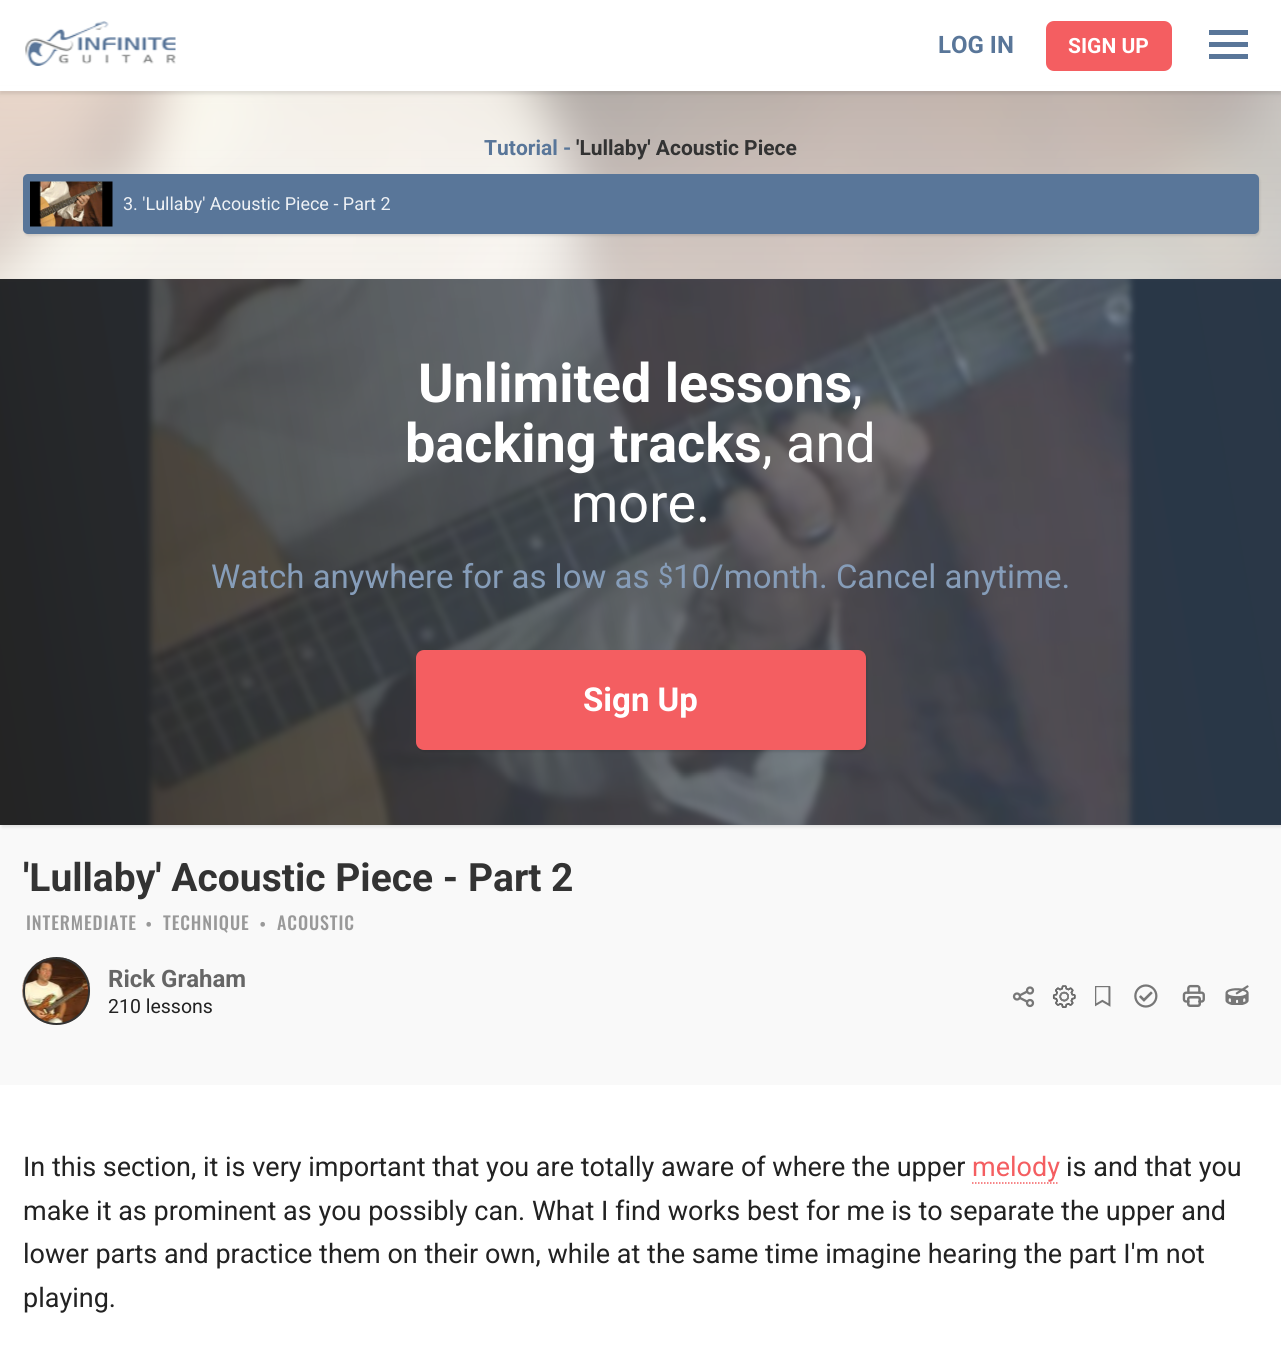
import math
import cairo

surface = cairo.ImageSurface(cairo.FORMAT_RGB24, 1281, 1371)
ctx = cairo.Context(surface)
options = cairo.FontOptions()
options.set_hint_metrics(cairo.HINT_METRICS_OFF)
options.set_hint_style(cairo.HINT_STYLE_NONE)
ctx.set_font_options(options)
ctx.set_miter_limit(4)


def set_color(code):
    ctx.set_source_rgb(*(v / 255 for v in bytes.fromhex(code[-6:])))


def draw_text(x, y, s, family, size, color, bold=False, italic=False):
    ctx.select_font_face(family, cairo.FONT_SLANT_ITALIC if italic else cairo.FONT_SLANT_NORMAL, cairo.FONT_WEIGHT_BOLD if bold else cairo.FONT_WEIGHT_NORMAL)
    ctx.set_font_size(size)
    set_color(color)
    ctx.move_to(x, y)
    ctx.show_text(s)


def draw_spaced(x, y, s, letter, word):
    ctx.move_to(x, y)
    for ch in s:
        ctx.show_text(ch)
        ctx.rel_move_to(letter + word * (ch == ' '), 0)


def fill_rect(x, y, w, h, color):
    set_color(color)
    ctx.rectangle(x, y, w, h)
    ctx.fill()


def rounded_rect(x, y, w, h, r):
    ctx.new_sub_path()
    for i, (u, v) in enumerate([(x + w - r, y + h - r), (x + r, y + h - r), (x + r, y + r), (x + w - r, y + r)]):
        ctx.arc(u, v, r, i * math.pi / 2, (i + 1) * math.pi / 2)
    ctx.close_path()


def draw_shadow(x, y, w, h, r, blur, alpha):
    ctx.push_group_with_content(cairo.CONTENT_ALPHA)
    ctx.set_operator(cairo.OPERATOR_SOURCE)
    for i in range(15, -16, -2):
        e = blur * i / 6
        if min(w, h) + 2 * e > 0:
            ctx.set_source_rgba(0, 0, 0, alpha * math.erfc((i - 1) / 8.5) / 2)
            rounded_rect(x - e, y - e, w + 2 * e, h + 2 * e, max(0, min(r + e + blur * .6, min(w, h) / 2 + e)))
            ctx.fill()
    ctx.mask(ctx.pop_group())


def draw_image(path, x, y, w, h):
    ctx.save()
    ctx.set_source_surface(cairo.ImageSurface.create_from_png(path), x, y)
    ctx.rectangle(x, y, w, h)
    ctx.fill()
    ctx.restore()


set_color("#ffffff")
ctx.paint()
draw_image("assets/img1.png", 25, 21, 151, 45)
fill_rect(1209, 30, 39, 5, "#597699")
fill_rect(1209, 42, 39, 5, "#597699")
fill_rect(1209, 54, 39, 5, "#597699")
draw_text(938, 53, "LOG IN", "Roboto", 24, "#597699", bold=True)
set_color("#f45e61")
rounded_rect(1046, 21, 126, 50, 8)
ctx.fill()
draw_text(1068, 53, "SIGN UP", "Roboto", 21, "#ffffff", bold=True)
draw_image("assets/img2.png", 0, 91, 1281, 994)
set_color("#000000")
draw_shadow(0, 89, 1281, 5, 0, 2, 0.1)
fill_rect(0, 86, 1281, 5, "#ffffff")
draw_text(484, 155, "Tutorial -", "Roboto", 21, "#597699", bold=True)
draw_text(576, 155, "'Lullaby' Acoustic Piece", "Roboto", 21, "#333333", bold=True)
set_color("#000000")
draw_shadow(24, 176, 1236, 60, 5, 1, 0.1)
set_color("#597699")
rounded_rect(23, 174, 1236, 60, 5)
ctx.fill()
draw_image("assets/img3.png", 30, 181, 83, 46)
ctx.save()
ctx.rectangle(123, 195, 1089, 18)
ctx.clip()
draw_text(123, 210, "3. 'Lullaby' Acoustic Piece - Part 2", "Roboto", 18, "#eef1f5")
ctx.restore()
set_color("#000000")
draw_shadow(2, 281, 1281, 546, 0, 1.5, 0.1)
draw_image("assets/img4.png", 0, 279, 1281, 546)
gradient = cairo.LinearGradient(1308, 434, -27, 670)
gradient.add_color_stop_rgba(0, 0.349, 0.463, 0.6, 0.16)
gradient.add_color_stop_rgba(1, 0.133, 0.133, 0.133, 0.4)
ctx.set_source(gradient)
ctx.rectangle(0, 279, 1281, 546)
ctx.fill()
gradient = cairo.LinearGradient(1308, 434, -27, 670)
gradient.add_color_stop_rgba(0, 0.275, 0.365, 0.475, 0.48)
gradient.add_color_stop_rgba(1, 0.161, 0.161, 0.161, 0.8)
ctx.set_source(gradient)
ctx.rectangle(0, 279, 1281, 546)
ctx.fill()
draw_text(418, 402, "Unlimited lessons", "Roboto", 54, "#ffffff", bold=True)
draw_text(852, 402, ",", "Roboto", 54, "#ffffff")
draw_text(405, 462, "backing tracks", "Roboto", 54, "#ffffff", bold=True)
draw_text(762, 462, ", and", "Roboto", 54, "#ffffff")
draw_text(571, 522, "more.", "Roboto", 54, "#ffffff")
draw_text(211, 588, "Watch anywhere for as low as", "Roboto", 33, "#869db9")
draw_text(658, 585, "$", "Roboto", 27, "#869db9")
draw_text(673, 588, "10/month", "Roboto", 33, "#869db9")
draw_text(819, 588, ". Cancel anytime.", "Roboto", 33, "#869db9")
set_color("#000000")
draw_shadow(417, 651, 450, 101, 8, 1, 0.1)
set_color("#f45e61")
rounded_rect(416, 650, 450, 100, 8)
ctx.fill()
draw_text(583, 711, "Sign Up", "Roboto", 33, "#ffffff", bold=True)
draw_text(23, 891, "'Lullaby' Acoustic Piece - Part 2", "Roboto", 39, "#333333", bold=True)
ctx.select_font_face("Oswald Medium")
ctx.set_font_size(18)
set_color("#999999")
draw_spaced(26, 930, "INTERMEDIATE", 0.9, 0)
draw_text(145, 932, "•", "Roboto Medium", 21, "#999999")
ctx.select_font_face("Oswald Medium")
ctx.set_font_size(18)
draw_spaced(163, 930, "TECHNIQUE", 0.9, 0)
draw_text(259, 932, "•", "Roboto Medium", 21, "#999999")
ctx.select_font_face("Oswald Medium")
ctx.set_font_size(18)
draw_spaced(277, 930, "ACOUSTIC", 0.9, 0)
draw_image("assets/img5.png", 1012, 986, 23, 22)
draw_image("assets/img6.png", 1052, 985, 24, 23)
draw_image("assets/img7.png", 1095, 986, 16, 21)
draw_image("assets/img8.png", 1134, 984, 24, 24)
draw_image("assets/img9.png", 1182, 984, 23, 23)
draw_image("assets/img10.png", 1225, 985, 24, 20)
draw_image("assets/img11.png", 22, 957, 69, 68)
rounded_rect(24, 958, 65, 66, 32.5)
set_color("#333333")
ctx.stroke()
draw_text(108, 987, "Rick Graham", "Roboto", 24, "#666666", bold=True)
draw_text(108, 1013, "210 lessons", "Roboto", 19.5, "#222222")
draw_text(23, 1176, "In this section, it is very important that you are totally aware of where the upper", "Roboto", 27, "#222222")
draw_text(972, 1176, "melody", "Roboto", 27, "#f45e61")
ctx.new_path()
ctx.move_to(972, 1183)
ctx.line_to(1059, 1183)
ctx.set_line_width(1.5)
ctx.set_dash([1.5, 1.5])
ctx.stroke()
draw_text(1066, 1176, "is and that you", "Roboto", 27, "#222222")
draw_text(23, 1220, "make it as prominent as you possibly can. What I find works best for me is to separate the upper and", "Roboto", 27, "#222222")
draw_text(23, 1263, "lower parts and practice them on their own, while at the same time imagine hearing the part I'm not", "Roboto", 27, "#222222")
draw_text(23, 1307, "playing.", "Roboto", 27, "#222222")
surface.write_to_png("output.png")
